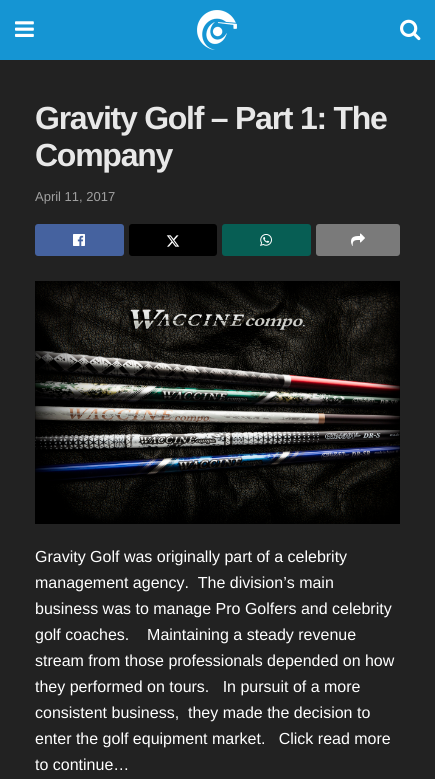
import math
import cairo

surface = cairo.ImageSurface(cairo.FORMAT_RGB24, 435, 779)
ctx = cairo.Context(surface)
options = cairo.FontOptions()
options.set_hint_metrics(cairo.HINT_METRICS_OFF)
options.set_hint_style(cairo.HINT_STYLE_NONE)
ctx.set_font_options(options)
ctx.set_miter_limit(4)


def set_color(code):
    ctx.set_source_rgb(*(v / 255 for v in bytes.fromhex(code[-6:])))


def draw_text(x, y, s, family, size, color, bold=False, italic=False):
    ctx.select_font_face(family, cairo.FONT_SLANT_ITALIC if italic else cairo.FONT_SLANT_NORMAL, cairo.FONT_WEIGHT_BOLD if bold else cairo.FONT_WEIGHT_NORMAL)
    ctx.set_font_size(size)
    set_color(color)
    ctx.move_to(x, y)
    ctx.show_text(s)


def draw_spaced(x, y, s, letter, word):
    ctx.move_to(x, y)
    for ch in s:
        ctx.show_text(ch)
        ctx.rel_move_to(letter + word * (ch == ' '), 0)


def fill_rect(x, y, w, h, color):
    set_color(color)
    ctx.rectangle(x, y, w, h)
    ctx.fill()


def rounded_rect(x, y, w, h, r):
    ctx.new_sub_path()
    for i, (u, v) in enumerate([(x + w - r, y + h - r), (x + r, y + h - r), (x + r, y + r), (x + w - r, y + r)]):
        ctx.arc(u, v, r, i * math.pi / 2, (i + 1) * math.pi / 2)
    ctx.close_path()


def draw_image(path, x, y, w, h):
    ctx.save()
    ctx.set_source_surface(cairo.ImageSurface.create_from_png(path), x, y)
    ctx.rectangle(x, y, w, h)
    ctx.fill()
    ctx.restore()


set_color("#222222")
ctx.paint()
fill_rect(0, 0, 435, 60, "#1595d3")
draw_image("assets/img1.png", 15, 21, 19, 16)
draw_image("assets/img2.png", 197, 10, 40, 40)
draw_image("assets/img3.png", 400, 19, 21, 22)
ctx.select_font_face("Liberation Sans", cairo.FONT_SLANT_NORMAL, cairo.FONT_WEIGHT_BOLD)
ctx.set_font_size(32)
set_color("#e8e8e8")
draw_spaced(35, 129, "Gravity Golf – Part 1: The", -1.25, 0)
draw_spaced(35, 166, "Company", -1.25, 0)
draw_text(35, 201, "April 11, 2017", "Liberation Sans", 13, "#a0a0a0")
set_color("#45629f")
rounded_rect(35, 224, 89, 32, 3)
ctx.fill()
draw_image("assets/img4.png", 73, 234, 12, 12)
set_color("#000000")
rounded_rect(129, 224, 88, 32, 3)
ctx.fill()
draw_image("assets/img5.png", 166, 235, 14, 12)
set_color("#075e54")
rounded_rect(222, 224, 89, 32, 3)
ctx.fill()
draw_image("assets/img6.png", 260, 234, 12, 12)
set_color("#7a7a7a")
rounded_rect(316, 224, 84, 32, 3)
ctx.fill()
draw_image("assets/img7.png", 351, 233, 14, 13)
draw_image("assets/img8.png", 35, 281, 365, 243)
draw_text(35, 562, "Gravity Golf was originally part of a celebrity", "Liberation Sans", 16, "#ffffff")
draw_text(35, 588, "management agency.  The division’s main", "Liberation Sans", 16, "#ffffff")
draw_text(35, 614, "business was to manage Pro Golfers and celebrity", "Liberation Sans", 16, "#ffffff")
draw_text(35, 640, "golf coaches.    Maintaining a steady revenue", "Liberation Sans", 16, "#ffffff")
draw_text(35, 666, "stream from those professionals depended on how", "Liberation Sans", 16, "#ffffff")
draw_text(35, 692, "they performed on tours.   In pursuit of a more", "Liberation Sans", 16, "#ffffff")
draw_text(35, 718, "consistent business,  they made the decision to", "Liberation Sans", 16, "#ffffff")
draw_text(35, 744, "enter the golf equipment market.   Click read more", "Liberation Sans", 16, "#ffffff")
draw_text(35, 770, "to continue…", "Liberation Sans", 16, "#ffffff")
surface.write_to_png("output.png")
